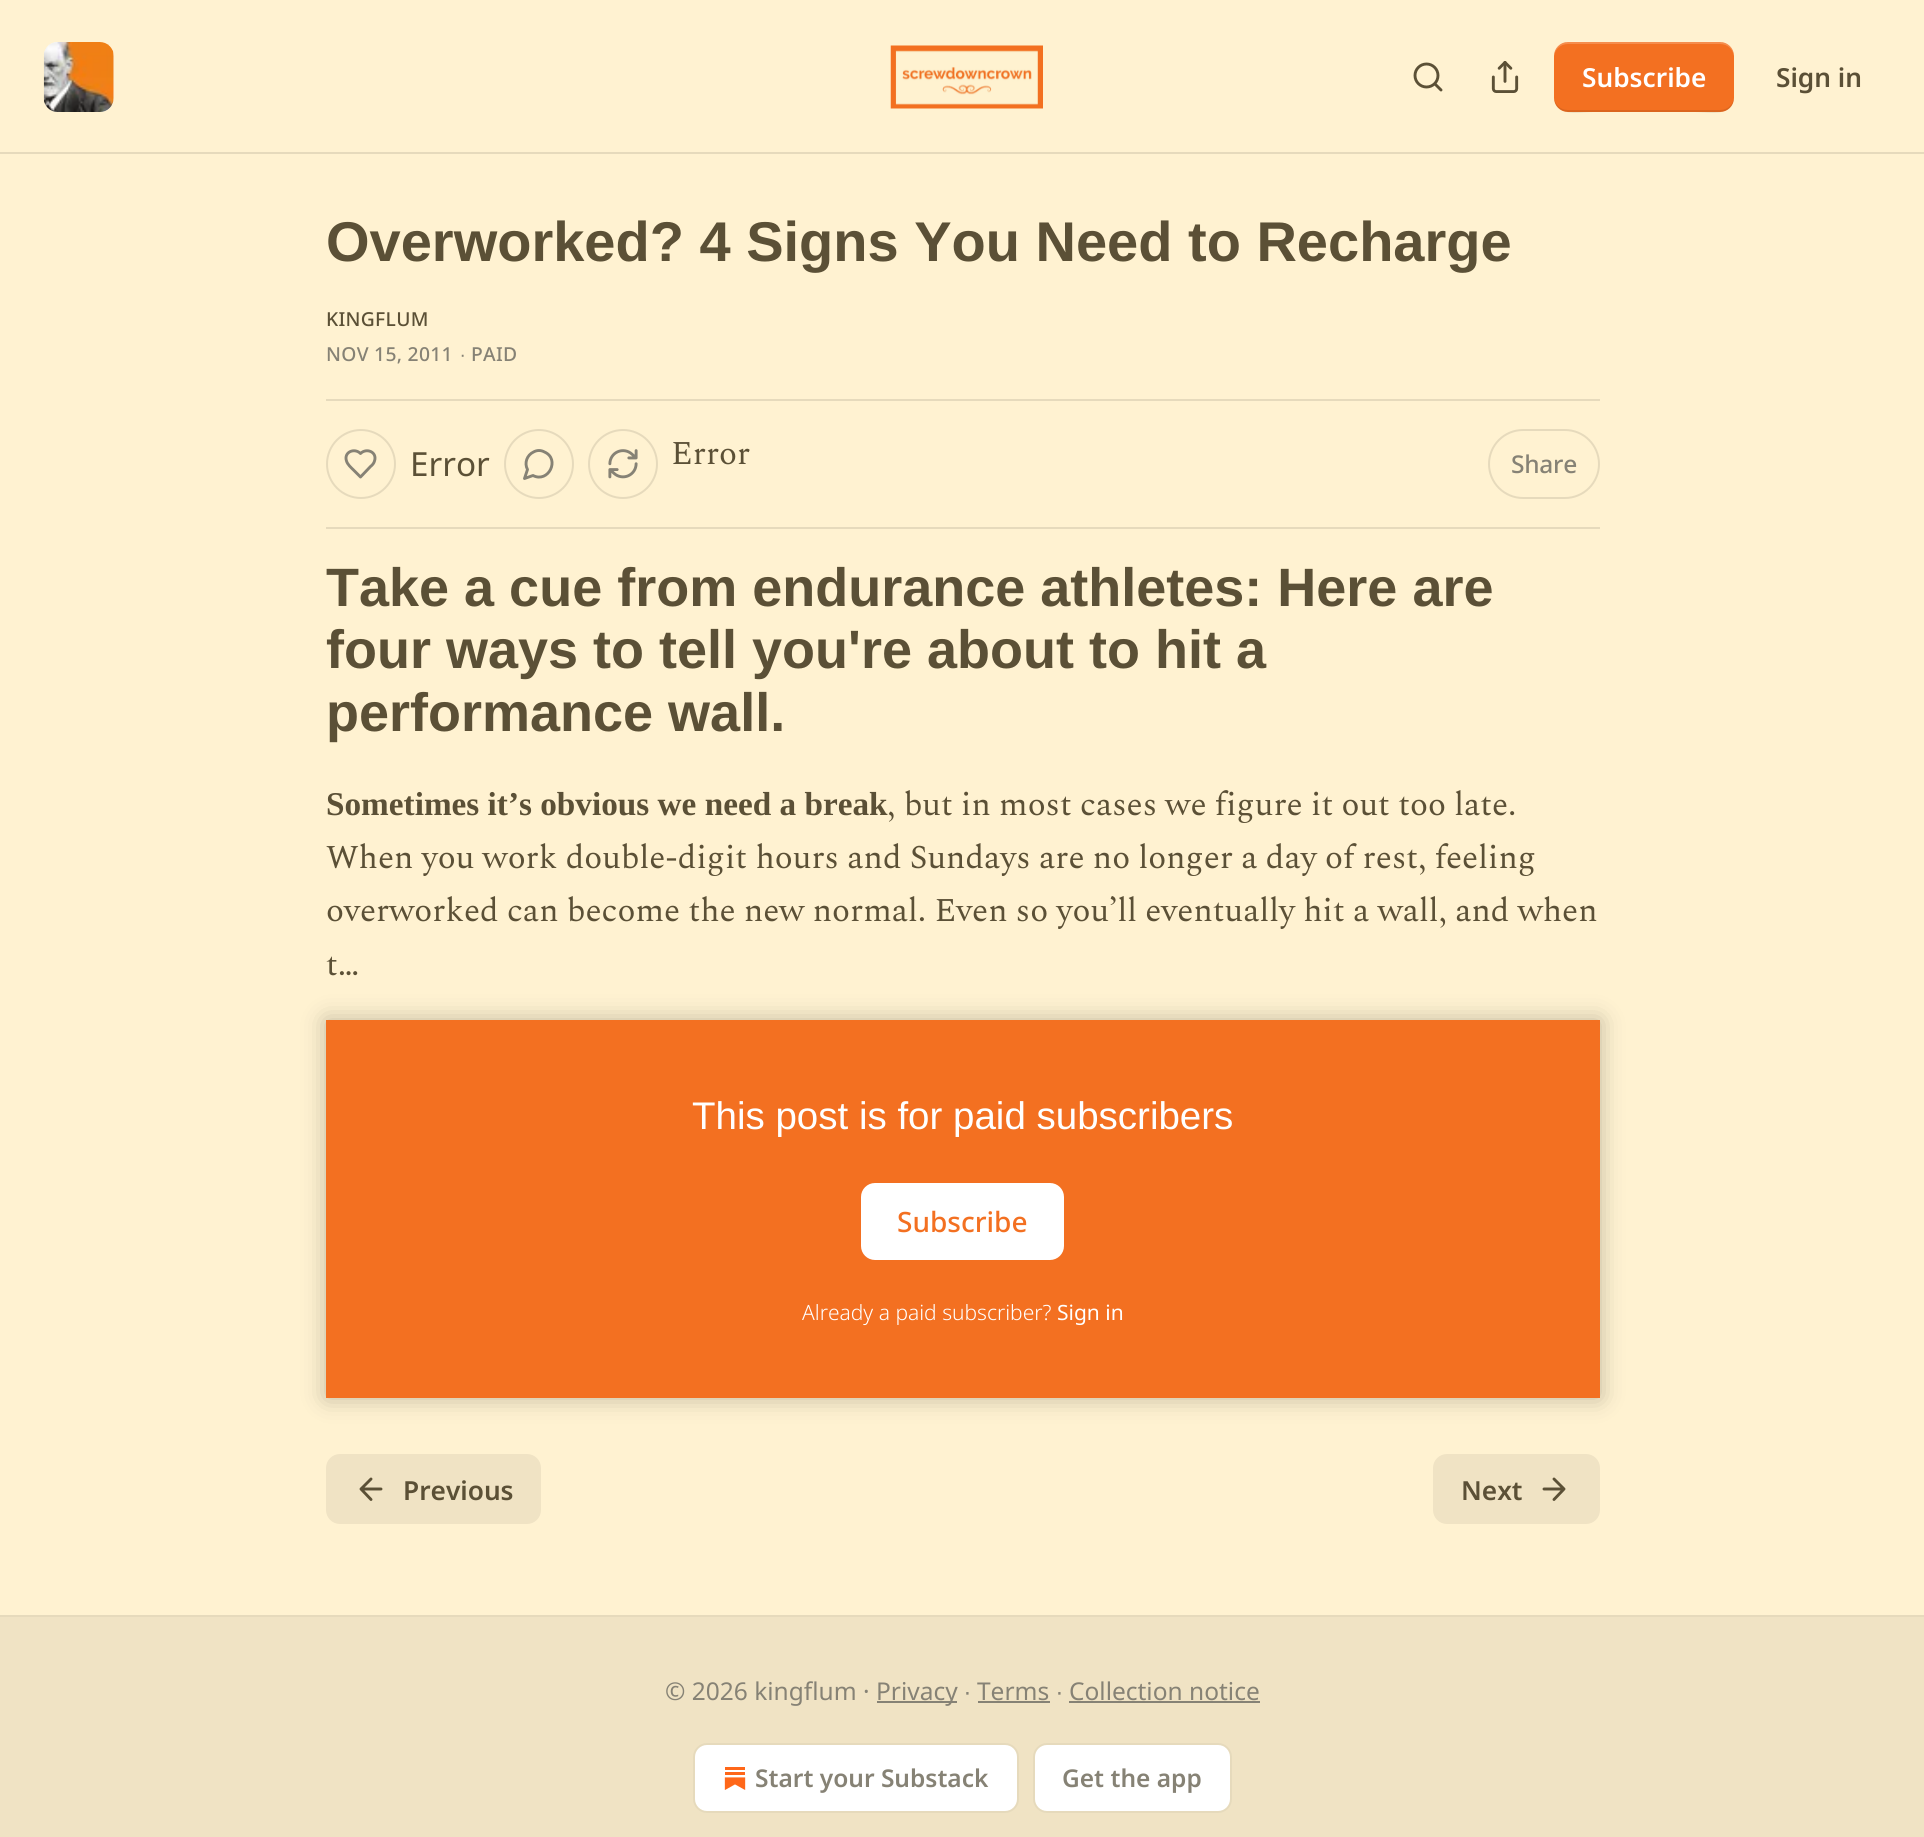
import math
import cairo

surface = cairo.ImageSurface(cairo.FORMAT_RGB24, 1924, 1837)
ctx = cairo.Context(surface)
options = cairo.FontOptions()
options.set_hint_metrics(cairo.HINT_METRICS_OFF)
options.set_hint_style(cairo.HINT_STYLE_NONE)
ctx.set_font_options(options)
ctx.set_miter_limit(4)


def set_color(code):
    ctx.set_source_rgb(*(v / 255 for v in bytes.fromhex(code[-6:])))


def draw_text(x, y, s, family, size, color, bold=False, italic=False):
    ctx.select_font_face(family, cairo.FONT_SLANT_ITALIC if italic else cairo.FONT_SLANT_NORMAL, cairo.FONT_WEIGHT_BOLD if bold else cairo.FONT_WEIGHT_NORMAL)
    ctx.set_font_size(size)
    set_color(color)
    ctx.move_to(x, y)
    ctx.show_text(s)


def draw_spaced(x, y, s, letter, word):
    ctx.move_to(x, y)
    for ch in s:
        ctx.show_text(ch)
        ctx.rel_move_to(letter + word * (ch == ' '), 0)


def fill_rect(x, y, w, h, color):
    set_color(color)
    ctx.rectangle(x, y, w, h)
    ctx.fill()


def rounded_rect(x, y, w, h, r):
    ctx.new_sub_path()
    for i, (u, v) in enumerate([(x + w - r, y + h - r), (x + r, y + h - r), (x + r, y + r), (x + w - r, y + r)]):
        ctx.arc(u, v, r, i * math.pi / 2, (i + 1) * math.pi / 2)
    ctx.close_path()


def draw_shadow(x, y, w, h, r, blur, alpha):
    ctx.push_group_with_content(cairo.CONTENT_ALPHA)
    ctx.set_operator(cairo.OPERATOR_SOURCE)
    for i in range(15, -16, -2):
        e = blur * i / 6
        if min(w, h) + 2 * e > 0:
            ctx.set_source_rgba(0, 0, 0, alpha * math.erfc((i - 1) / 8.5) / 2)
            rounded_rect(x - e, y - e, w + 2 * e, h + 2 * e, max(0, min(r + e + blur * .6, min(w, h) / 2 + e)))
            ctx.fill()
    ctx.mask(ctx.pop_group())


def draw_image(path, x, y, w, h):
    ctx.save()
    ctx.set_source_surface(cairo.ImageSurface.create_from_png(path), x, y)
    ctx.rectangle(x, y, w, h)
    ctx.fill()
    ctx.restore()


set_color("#fff2d1")
ctx.paint()
fill_rect(0, 152, 1924, 2, "#e6dabc")
set_color("#ffffff")
rounded_rect(44, 42, 70, 70, 14)
ctx.fill()
draw_image("assets/img1.png", 43, 42, 71, 70)
draw_image("assets/img2.png", 890, 45, 153, 64)
ctx.arc(1426.5, 75.5, 11.5, 0, 2 * math.pi)
set_color("#5b5036")
ctx.set_line_width(2.9)
ctx.stroke()
ctx.new_path()
ctx.move_to(1441, 90)
ctx.line_to(1435, 84)
ctx.set_line_cap(cairo.LINE_CAP_ROUND)
ctx.set_line_join(cairo.LINE_JOIN_ROUND)
ctx.stroke()
draw_image("assets/img3.png", 1491, 61, 28, 32)
set_color("#f37021")
rounded_rect(1554, 42, 180, 70, 14)
ctx.fill()
ctx.set_source_rgba(0, 0, 0, 0.1)
ctx.new_path()
ctx.move_to(1554, 96)
ctx.curve_to(1554, 118, 1578, 112, 1593, 112)
ctx.line_to(1695, 112)
ctx.curve_to(1710, 112, 1734, 118, 1734, 96)
ctx.curve_to(1734, 104, 1728, 110, 1720, 110)
ctx.line_to(1568, 110)
ctx.curve_to(1560, 110, 1554, 104, 1554, 96)
ctx.close_path()
ctx.fill()
ctx.set_source_rgba(1, 1, 1, 0.2)
ctx.new_path()
ctx.move_to(1568, 44)
ctx.line_to(1720, 44)
ctx.curve_to(1728, 44, 1734, 50, 1734, 58)
ctx.curve_to(1734, 36, 1710, 42, 1695, 42)
ctx.line_to(1593, 42)
ctx.curve_to(1578, 42, 1554, 36, 1554, 58)
ctx.curve_to(1554, 50, 1560, 44, 1568, 44)
ctx.close_path()
ctx.fill()
draw_text(1582, 87, "Subscribe", "Noto Sans SemiBold", 26.25, "#ffffff")
draw_text(1776, 87, "Sign in", "Noto Sans SemiBold", 26.25, "#5b5036")
draw_text(326, 261, "Overworked? 4 Signs You Need to Recharge", "Liberation Sans", 56, "#5b5036", bold=True)
ctx.select_font_face("Noto Sans Medium")
ctx.set_font_size(19.25)
draw_spaced(326, 326, "KINGFLUM", 0.3, 0)
set_color("#868275")
draw_spaced(326, 361, "NOV 15, 2011", 0.3, 0)
ctx.select_font_face("Liberation Sans")
draw_spaced(460, 361, "∙", 0.3, 0)
ctx.select_font_face("Noto Sans Medium")
draw_spaced(471, 361, "PAID", 0.3, 0)
fill_rect(326, 399, 1274, 2, "#e6dabc")
fill_rect(326, 527, 1274, 2, "#e6dabc")
ctx.new_path()
ctx.arc(361, 464, 34, 0, 2 * math.pi)
ctx.set_line_width(2)
ctx.set_line_cap(cairo.LINE_CAP_BUTT)
ctx.set_line_join(cairo.LINE_JOIN_MITER)
ctx.stroke()
ctx.new_path()
ctx.move_to(370.5, 466.5)
ctx.curve_to(372.5, 465, 374, 463, 374.5, 461)
ctx.curve_to(377.5, 452, 366.5, 447.5, 360.5, 453.5)
ctx.curve_to(354.5, 447.5, 343.5, 452, 346.5, 461)
ctx.curve_to(347.5, 464.5, 351, 467.5, 353.5, 470)
ctx.line_to(360.5, 477)
ctx.close_path()
set_color("#868275")
ctx.set_line_width(2.9)
ctx.set_line_cap(cairo.LINE_CAP_ROUND)
ctx.set_line_join(cairo.LINE_JOIN_ROUND)
ctx.stroke()
draw_text(410, 476, "Error", "Noto Sans", 33.25, "#5b5036")
ctx.new_path()
ctx.arc(539, 464, 34, 0, 2 * math.pi)
set_color("#e6dabc")
ctx.set_line_width(2)
ctx.set_line_cap(cairo.LINE_CAP_BUTT)
ctx.set_line_join(cairo.LINE_JOIN_MITER)
ctx.stroke()
ctx.new_path()
ctx.move_to(533, 475.5)
ctx.curve_to(548.5, 483.5, 560.5, 459, 544.5, 452)
ctx.curve_to(541, 450, 537, 450, 533.5, 452)
ctx.curve_to(527, 455, 524, 463, 527.5, 469.5)
ctx.line_to(524.5, 478.5)
ctx.close_path()
set_color("#868275")
ctx.set_line_width(2.9)
ctx.set_line_cap(cairo.LINE_CAP_ROUND)
ctx.set_line_join(cairo.LINE_JOIN_ROUND)
ctx.stroke()
ctx.arc(623, 464, 34, 0, 2 * math.pi)
set_color("#e6dabc")
ctx.set_line_width(2)
ctx.set_line_cap(cairo.LINE_CAP_BUTT)
ctx.set_line_join(cairo.LINE_JOIN_MITER)
ctx.stroke()
draw_image("assets/img4.png", 608, 449, 30, 30)
draw_text(671, 464, "Error", "Spectral", 33.25, "#5b5036")
rounded_rect(1489, 430, 110, 68, 34)
set_color("#e6dabc")
ctx.stroke()
ctx.select_font_face("Noto Sans Medium")
ctx.set_font_size(24.5)
set_color("#868275")
draw_spaced(1511, 473, "Share", -0.25, 0)
draw_text(326, 606, "Take a cue from endurance athletes: Here are", "Liberation Sans", 54, "#5b5036", bold=True)
draw_text(326, 668, "four ways to tell you're about to hit a", "Liberation Sans", 54, "#5b5036", bold=True)
draw_text(326, 731, "performance wall.", "Liberation Sans", 54, "#5b5036", bold=True)
draw_text(326, 815, "Sometimes it’s obvious we need a break", "Liberation Serif", 33.25, "#5b5036", bold=True)
draw_text(887, 815, ", but in most cases we figure it out too late.", "Spectral", 33.25, "#5b5036")
draw_text(326, 868, "When you work double-digit hours and Sundays are no longer a day of rest, feeling", "Spectral", 33.25, "#5b5036")
draw_text(326, 921, "overworked can become the new normal. Even so you’ll eventually hit a wall, and when", "Spectral", 33.25, "#5b5036")
draw_text(326, 975, "t…", "Spectral", 33.25, "#5b5036")
fill_rect(326, 1020, 1274, 378, "#f37021")
set_color("#ffffff")
rounded_rect(862, 1184, 201, 75, 13)
ctx.fill_preserve()
ctx.stroke()
ctx.save()
ctx.set_fill_rule(cairo.FILL_RULE_EVEN_ODD)
ctx.new_path()
ctx.move_to(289, 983)
ctx.line_to(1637, 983)
ctx.line_to(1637, 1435)
ctx.line_to(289, 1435)
ctx.close_path()
ctx.move_to(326, 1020)
ctx.line_to(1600, 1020)
ctx.line_to(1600, 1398)
ctx.line_to(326, 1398)
ctx.close_path()
ctx.clip()
set_color("#000000")
draw_shadow(326, 1020, 1274, 378, 0, 12, 0.25)
ctx.restore()
draw_text(692, 1129, "This post is for paid subscribers", "Liberation Sans", 38.5, "#ffffff")
draw_text(897, 1232, "Subscribe", "Noto Sans Medium", 28, "#f37021")
draw_text(802, 1320, "Already a paid subscriber?", "Noto Sans Light", 21, "#ffffff")
draw_text(1057, 1320, "Sign in", "Noto Sans", 21, "#ffffff")
set_color("#f0e3c4")
rounded_rect(326, 1454, 215, 70, 14)
ctx.fill()
ctx.new_path()
ctx.move_to(371, 1499.5)
ctx.line_to(361, 1489)
ctx.line_to(371, 1479)
ctx.move_to(381, 1489)
ctx.line_to(361, 1489)
set_color("#5b5036")
ctx.set_line_width(2.9)
ctx.set_line_cap(cairo.LINE_CAP_ROUND)
ctx.set_line_join(cairo.LINE_JOIN_ROUND)
ctx.stroke()
draw_text(403, 1500, "Previous", "Noto Sans SemiBold", 26.25, "#5b5036")
set_color("#f0e3c4")
rounded_rect(1433, 1454, 167, 70, 14)
ctx.fill()
draw_text(1461, 1500, "Next", "Noto Sans SemiBold", 26.25, "#5b5036")
ctx.new_path()
ctx.move_to(1544, 1489)
ctx.line_to(1564, 1489)
ctx.move_to(1554, 1479)
ctx.line_to(1564, 1489)
ctx.line_to(1554, 1499.5)
ctx.stroke()
fill_rect(0, 1617, 1924, 220, "#f0e3c4")
fill_rect(0, 1615, 1924, 2, "#e6dabc")
draw_text(665, 1700, "© 2026 kingflum ·", "Noto Sans", 24.5, "#868275")
fill_rect(877, 1701, 80, 2, "#868275")
draw_text(876, 1700, "Privacy", "Noto Sans", 24.5, "#868275")
draw_text(964, 1700, "∙", "Liberation Sans", 24.5, "#868275")
draw_text(977, 1700, "Terms", "Noto Sans", 24.5, "#868275")
fill_rect(978, 1701, 72, 2, "#868275")
draw_text(1056, 1700, "∙", "Liberation Sans", 24.5, "#868275")
draw_text(1069, 1700, "Collection notice", "Noto Sans", 24.5, "#868275")
fill_rect(1069, 1701, 191, 2, "#868275")
set_color("#ffffff")
rounded_rect(694, 1744, 324, 68, 13)
ctx.fill_preserve()
set_color("#e6dabc")
ctx.set_line_width(2)
ctx.set_line_cap(cairo.LINE_CAP_BUTT)
ctx.set_line_join(cairo.LINE_JOIN_MITER)
ctx.stroke()
draw_image("assets/img5.png", 724, 1767, 22, 23)
draw_text(755, 1787, "Start your Substack", "Noto Sans SemiBold", 24.5, "#868275")
set_color("#ffffff")
rounded_rect(1034, 1744, 197, 68, 13)
ctx.fill_preserve()
set_color("#e6dabc")
ctx.stroke()
draw_text(1062, 1787, "Get the app", "Noto Sans SemiBold", 24.5, "#868275")
surface.write_to_png("output.png")
